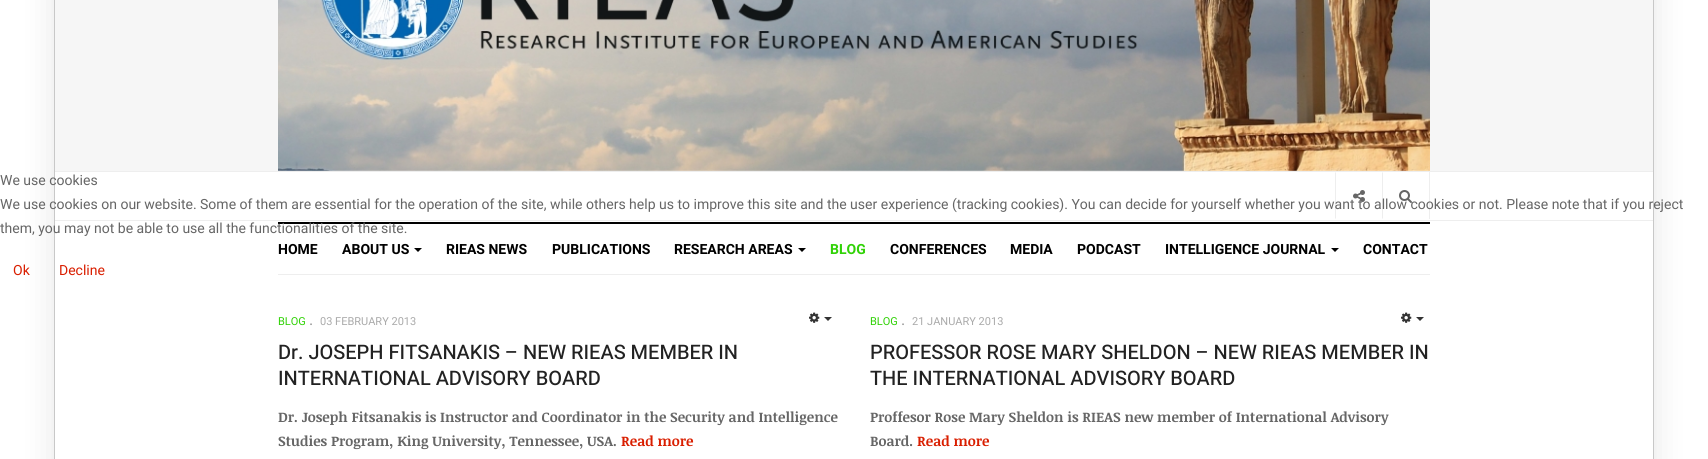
import math
import cairo

surface = cairo.ImageSurface(cairo.FORMAT_RGB24, 1708, 459)
ctx = cairo.Context(surface)
options = cairo.FontOptions()
options.set_hint_metrics(cairo.HINT_METRICS_OFF)
options.set_hint_style(cairo.HINT_STYLE_NONE)
ctx.set_font_options(options)
ctx.set_miter_limit(4)


def set_color(code):
    ctx.set_source_rgb(*(v / 255 for v in bytes.fromhex(code[-6:])))


def draw_text(x, y, s, family, size, color, bold=False, italic=False):
    ctx.select_font_face(family, cairo.FONT_SLANT_ITALIC if italic else cairo.FONT_SLANT_NORMAL, cairo.FONT_WEIGHT_BOLD if bold else cairo.FONT_WEIGHT_NORMAL)
    ctx.set_font_size(size)
    set_color(color)
    ctx.move_to(x, y)
    ctx.show_text(s)


def fill_rect(x, y, w, h, color):
    set_color(color)
    ctx.rectangle(x, y, w, h)
    ctx.fill()


def rounded_rect(x, y, w, h, r):
    ctx.new_sub_path()
    for i, (u, v) in enumerate([(x + w - r, y + h - r), (x + r, y + h - r), (x + r, y + r), (x + w - r, y + r)]):
        ctx.arc(u, v, r, i * math.pi / 2, (i + 1) * math.pi / 2)
    ctx.close_path()


def draw_shadow(x, y, w, h, r, blur, alpha):
    ctx.push_group_with_content(cairo.CONTENT_ALPHA)
    ctx.set_operator(cairo.OPERATOR_SOURCE)
    for i in range(15, -16, -2):
        e = blur * i / 6
        if min(w, h) + 2 * e > 0:
            ctx.set_source_rgba(0, 0, 0, alpha * math.erfc((i - 1) / 8.5) / 2)
            rounded_rect(x - e, y - e, w + 2 * e, h + 2 * e, max(0, min(r + e + blur * .6, min(w, h) / 2 + e)))
            ctx.fill()
    ctx.mask(ctx.pop_group())


def draw_image(path, x, y, w, h):
    ctx.save()
    ctx.set_source_surface(cairo.ImageSurface.create_from_png(path), x, y)
    ctx.rectangle(x, y, w, h)
    ctx.fill()
    ctx.restore()


set_color("#ffffff")
ctx.paint()
ctx.save()
ctx.set_fill_rule(cairo.FILL_RULE_EVEN_ODD)
ctx.new_path()
ctx.move_to(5, 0)
ctx.line_to(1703, 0)
ctx.line_to(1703, 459)
ctx.line_to(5, 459)
ctx.close_path()
ctx.move_to(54, -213)
ctx.line_to(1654, -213)
ctx.line_to(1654, 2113)
ctx.line_to(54, 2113)
ctx.close_path()
ctx.clip()
set_color("#000000")
draw_shadow(54, -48, 1600, 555, 0, 16, 0.1)
ctx.restore()
fill_rect(54, 0, 1, 459, "#c8c8c8")
draw_text(0, 185, "We use cookies", "Heebo", 14, "#666666")
fill_rect(1653, 0, 1, 459, "#c8c8c8")
set_color("#eeeeee")
ctx.new_path()
ctx.move_to(1335, 219)
ctx.line_to(1335, 172)
ctx.line_to(1336, 173)
ctx.line_to(1336, 218)
ctx.close_path()
ctx.fill()
draw_image("assets/img2.png", 1353, 190, 12, 12)
fill_rect(1429, 172, 1, 47, "#eeeeee")
ctx.new_path()
ctx.move_to(1382, 219)
ctx.line_to(1382, 172)
ctx.line_to(1383, 173)
ctx.line_to(1383, 218)
ctx.close_path()
ctx.fill()
draw_image("assets/img3.png", 1399, 190, 13, 13)
draw_text(0, 209, "We use cookies on our website. Some of them are essential for the operation of the site, while others help us to improve this site and the user experience (tracking cookies). You can decide for yourself whether you want to allow cookies or not. Please note that if you reject", "Heebo", 14, "#666666")
fill_rect(278, 222, 1152, 2, "#000000")
draw_text(0, 233, "them, you may not be able to use all the functionalities of the site.", "Heebo", 14, "#666666")
draw_text(13, 275, "Ok", "Heebo", 14, "#d91e00")
draw_text(59, 275, "Decline", "Heebo", 14, "#d91e00")
fill_rect(55, 0, 1598, 171, "#f6f6f6")
draw_image("assets/img1.png", 278, 0, 1152, 171)
fill_rect(55, 171, 1598, 1, "#eeeeee")
fill_rect(55, 220, 1598, 1, "#eeeeee")
fill_rect(278, 274, 1152, 1, "#eeeeee")
draw_text(278, 254, "HOME", "Heebo", 14, "#000000", bold=True)
draw_text(342, 254, "ABOUT US", "Heebo", 14, "#000000", bold=True)
ctx.new_path()
ctx.move_to(414, 248)
ctx.line_to(422, 248)
ctx.line_to(418, 252)
ctx.close_path()
ctx.fill()
draw_text(446, 254, "RIEAS NEWS", "Heebo", 14, "#000000", bold=True)
draw_text(552, 254, "PUBLICATIONS", "Heebo", 14, "#000000", bold=True)
draw_text(674, 254, "RESEARCH AREAS", "Heebo", 14, "#000000", bold=True)
ctx.new_path()
ctx.move_to(798, 248)
ctx.line_to(806, 248)
ctx.line_to(802, 252)
ctx.close_path()
ctx.fill()
draw_text(830, 254, "BLOG", "Heebo", 14, "#31d207", bold=True)
draw_text(890, 254, "CONFERENCES", "Heebo", 14, "#000000", bold=True)
draw_text(1010, 254, "MEDIA", "Heebo", 14, "#000000", bold=True)
draw_text(1077, 254, "PODCAST", "Heebo", 14, "#000000", bold=True)
draw_text(1165, 254, "INTELLIGENCE JOURNAL", "Heebo", 14, "#000000", bold=True)
ctx.new_path()
ctx.move_to(1331, 248)
ctx.line_to(1339, 248)
ctx.line_to(1335, 252)
ctx.close_path()
ctx.fill()
draw_text(1363, 254, "CONTACT", "Heebo", 14, "#000000", bold=True)
draw_text(278, 325, "BLOG", "Heebo", 11, "#31d207")
draw_text(309, 325, ".", "Heebo", 16, "#999999")
draw_text(320, 325, "03 FEBRUARY 2013", "Heebo", 11, "#aaaaaa")
draw_image("assets/img4.png", 809, 312, 11, 11)
set_color("#333333")
ctx.new_path()
ctx.move_to(824, 317)
ctx.line_to(832, 317)
ctx.line_to(828, 321)
ctx.close_path()
ctx.fill()
draw_text(278, 359, "Dr. JOSEPH FITSANAKIS – NEW RIEAS MEMBER IN", "Heebo Medium", 20, "#222222")
draw_text(278, 385, "INTERNATIONAL ADVISORY BOARD", "Heebo Medium", 20, "#222222")
draw_text(278, 422, "Dr. Joseph Fitsanakis is Instructor and Coordinator in the Security and Intelligence", "Noticia Text", 14, "#666666", bold=True)
draw_text(278, 446, "Studies Program, King University, Tennessee, USA.", "Noticia Text", 14, "#666666", bold=True)
draw_text(621, 446, "Read more", "Noticia Text", 14, "#d91e00", bold=True)
draw_text(870, 325, "BLOG", "Heebo", 11, "#31d207")
draw_text(901, 325, ".", "Heebo", 16, "#999999")
draw_text(912, 325, "21 JANUARY 2013", "Heebo", 11, "#aaaaaa")
draw_image("assets/img4.png", 1401, 312, 11, 11)
set_color("#333333")
ctx.new_path()
ctx.move_to(1416, 317)
ctx.line_to(1424, 317)
ctx.line_to(1420, 321)
ctx.close_path()
ctx.fill()
draw_text(870, 359, "PROFESSOR ROSE MARY SHELDON – NEW RIEAS MEMBER IN", "Heebo Medium", 20, "#222222")
draw_text(870, 385, "THE INTERNATIONAL ADVISORY BOARD", "Heebo Medium", 20, "#222222")
draw_text(870, 422, "Proffesor Rose Mary Sheldon is RIEAS new member of International Advisory", "Noticia Text", 14, "#666666", bold=True)
draw_text(870, 446, "Board.", "Noticia Text", 14, "#666666", bold=True)
draw_text(917, 446, "Read more", "Noticia Text", 14, "#d91e00", bold=True)
surface.write_to_png("output.png")
